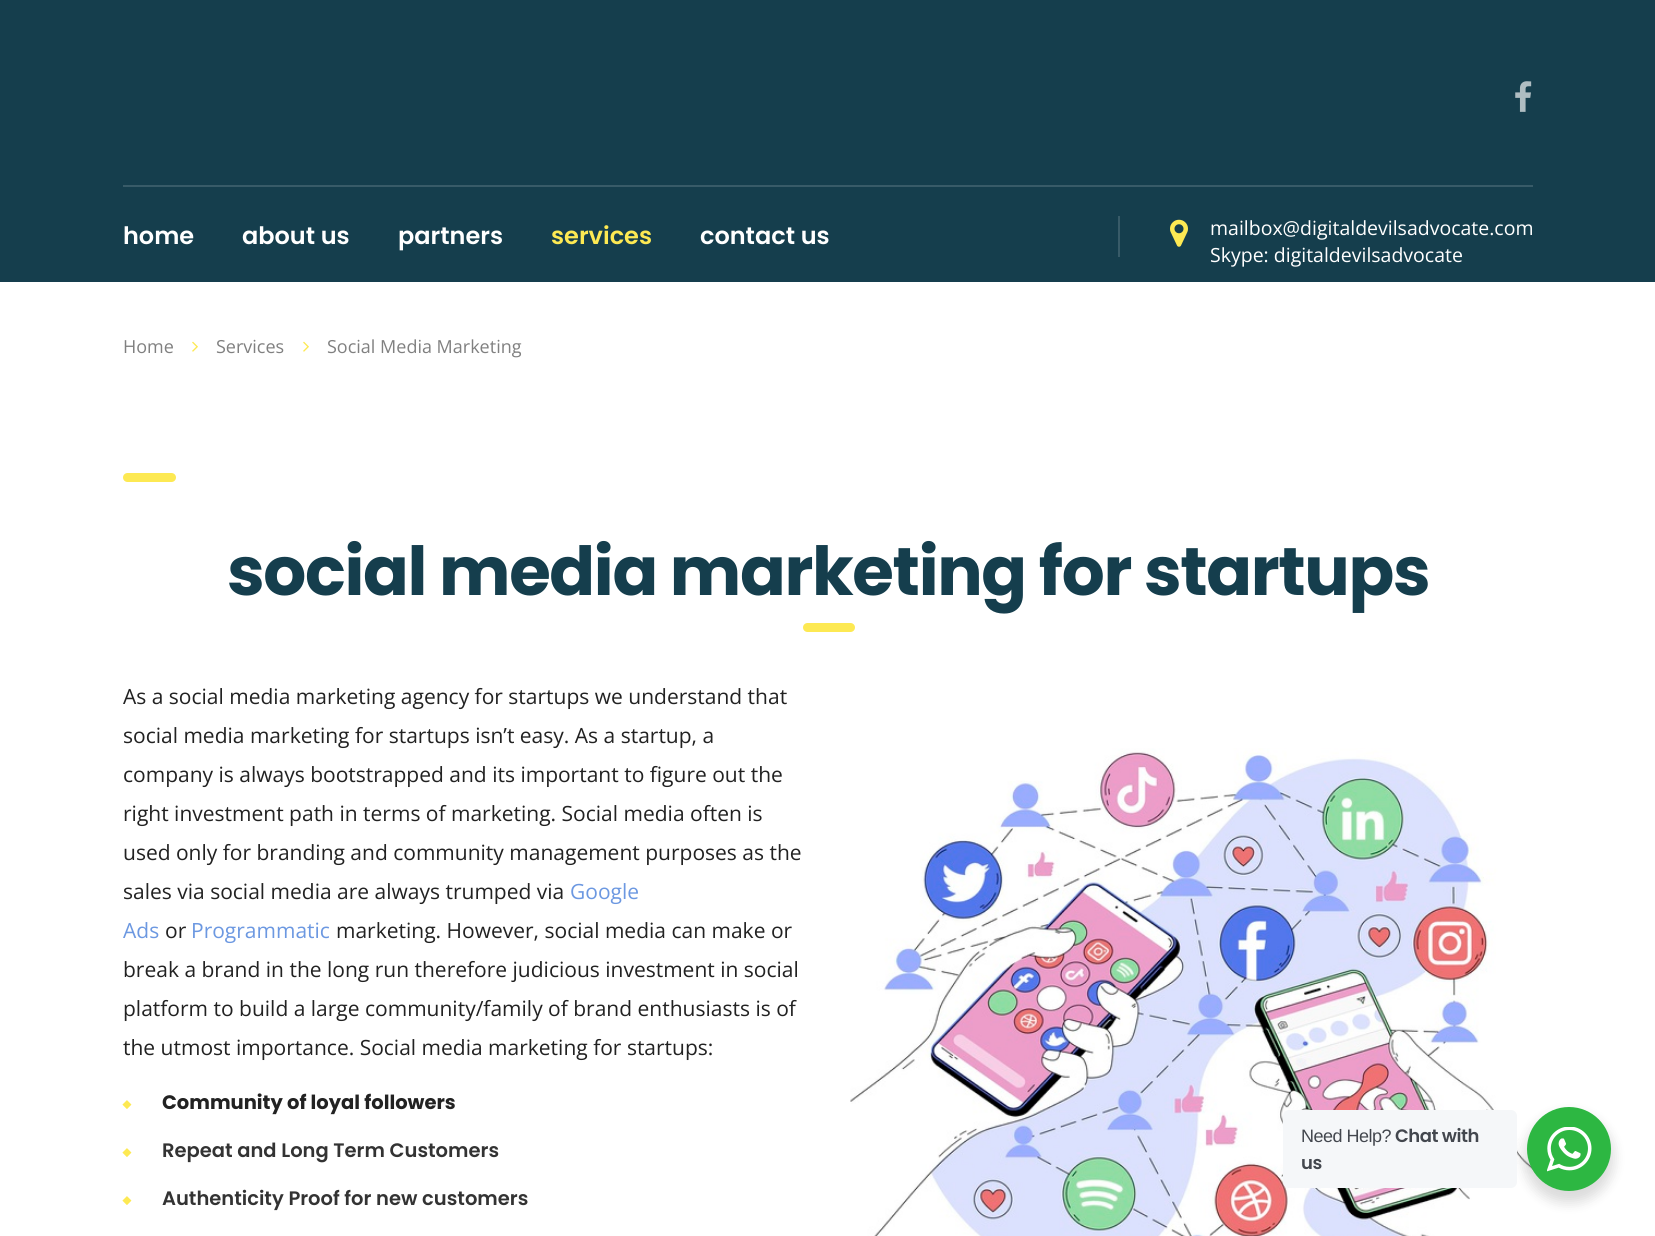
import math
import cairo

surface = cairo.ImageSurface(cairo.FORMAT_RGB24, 1655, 1236)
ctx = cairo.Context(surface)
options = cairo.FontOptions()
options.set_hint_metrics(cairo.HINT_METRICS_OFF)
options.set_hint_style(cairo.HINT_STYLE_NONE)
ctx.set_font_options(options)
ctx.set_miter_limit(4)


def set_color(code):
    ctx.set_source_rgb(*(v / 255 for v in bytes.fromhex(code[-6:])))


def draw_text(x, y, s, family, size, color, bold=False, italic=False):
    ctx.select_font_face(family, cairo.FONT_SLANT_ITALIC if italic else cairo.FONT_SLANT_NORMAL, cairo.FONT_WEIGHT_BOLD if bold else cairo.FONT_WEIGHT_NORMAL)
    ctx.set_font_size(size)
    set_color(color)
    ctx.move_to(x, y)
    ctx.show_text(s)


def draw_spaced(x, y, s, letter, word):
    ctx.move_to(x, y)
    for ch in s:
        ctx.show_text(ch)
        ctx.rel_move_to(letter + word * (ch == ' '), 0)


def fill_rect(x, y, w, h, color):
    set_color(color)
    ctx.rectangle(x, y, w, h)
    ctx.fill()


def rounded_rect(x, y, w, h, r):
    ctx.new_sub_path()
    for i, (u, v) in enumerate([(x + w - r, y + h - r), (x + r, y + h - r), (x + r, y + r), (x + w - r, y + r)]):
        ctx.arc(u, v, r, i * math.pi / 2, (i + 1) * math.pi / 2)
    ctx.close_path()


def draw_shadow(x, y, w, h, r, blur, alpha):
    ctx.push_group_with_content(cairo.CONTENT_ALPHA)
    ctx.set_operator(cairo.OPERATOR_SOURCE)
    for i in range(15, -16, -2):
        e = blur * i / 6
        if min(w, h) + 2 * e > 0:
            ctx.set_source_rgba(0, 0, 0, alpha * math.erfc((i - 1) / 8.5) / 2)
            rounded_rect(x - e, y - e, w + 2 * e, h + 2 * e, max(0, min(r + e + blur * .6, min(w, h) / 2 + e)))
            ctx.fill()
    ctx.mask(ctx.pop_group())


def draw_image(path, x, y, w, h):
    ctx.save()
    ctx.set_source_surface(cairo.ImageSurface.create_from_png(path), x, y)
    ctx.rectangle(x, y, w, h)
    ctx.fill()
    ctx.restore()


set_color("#ffffff")
ctx.paint()
fill_rect(0, 0, 1655, 282, "#153e4d")
draw_image("assets/img1.png", 1515, 81, 17, 31)
fill_rect(123, 185, 1410, 2, "#385b68")
draw_text(123, 244, "home", "Poppins SemiBold", 24, "#ffffff")
draw_text(242, 244, "about us", "Poppins SemiBold", 24, "#ffffff")
draw_text(398, 244, "partners", "Poppins SemiBold", 24, "#ffffff")
draw_text(551, 244, "services", "Poppins SemiBold", 24, "#fde953")
draw_text(700, 244, "contact us", "Poppins SemiBold", 24, "#ffffff")
fill_rect(1118, 216, 2, 41, "#385b68")
draw_image("assets/img2.png", 1170, 219, 18, 28)
draw_text(1210, 235, "mailbox@digitaldevilsadvocate.com", "Open Sans", 19.5, "#ffffff")
draw_text(1210, 262, "Skype: digitaldevilsadvocate", "Open Sans", 19.5, "#ffffff")
draw_text(123, 353, "Home", "Open Sans", 18, "#808080")
draw_image("assets/img3.png", 192, 341, 6, 11)
draw_text(216, 353, "Services", "Open Sans", 18, "#808080")
draw_image("assets/img3.png", 303, 341, 6, 11)
draw_text(327, 353, "Social Media Marketing", "Open Sans", 18, "#808080")
set_color("#fde953")
rounded_rect(123, 473, 53, 9, 4.5)
ctx.fill()
ctx.select_font_face("Poppins", cairo.FONT_SLANT_NORMAL, cairo.FONT_WEIGHT_BOLD)
ctx.set_font_size(67.5)
set_color("#153e4d")
draw_spaced(227, 595, "social media marketing for startups", -1.35, 0)
set_color("#fde953")
rounded_rect(803, 623, 52, 9, 4.5)
ctx.fill()
draw_text(123, 704, "As a social media marketing agency for startups we understand that", "Open Sans", 21, "#222222")
draw_text(123, 743, "social media marketing for startups isn’t easy. As a startup, a", "Open Sans", 21, "#222222")
draw_text(123, 782, "company is always bootstrapped and its important to figure out the", "Open Sans", 21, "#222222")
draw_text(123, 821, "right investment path in terms of marketing. Social media often is", "Open Sans", 21, "#222222")
draw_text(123, 860, "used only for branding and community management purposes as the", "Open Sans", 21, "#222222")
draw_text(123, 899, "sales via social media are always trumped via", "Open Sans", 21, "#222222")
draw_text(570, 899, "Google", "Open Sans", 21, "#6c98e1")
draw_text(123, 938, "Ads", "Open Sans", 21, "#6c98e1")
draw_text(165, 938, "or", "Open Sans", 21, "#222222")
draw_text(191, 938, "Programmatic", "Open Sans", 21, "#6c98e1")
draw_text(336, 938, "marketing. However, social media can make or", "Open Sans", 21, "#222222")
draw_text(123, 977, "break a brand in the long run therefore judicious investment in social", "Open Sans", 21, "#222222")
draw_text(123, 1016, "platform to build a large community/family of brand enthusiasts is of", "Open Sans", 21, "#222222")
draw_text(123, 1055, "the utmost importance. Social media marketing for startups:", "Open Sans", 21, "#222222")
draw_image("assets/img4.png", 122, 1100, 10, 9)
draw_text(162, 1109, "Community of loyal followers", "Poppins", 19.5, "#222222", bold=True)
draw_image("assets/img4.png", 122, 1148, 10, 9)
draw_text(162, 1157, "Repeat and Long Term Customers", "Poppins SemiBold", 19.5, "#333333")
draw_image("assets/img4.png", 122, 1196, 10, 9)
draw_text(162, 1205, "Authenticity Proof for new customers", "Poppins SemiBold", 19.5, "#333333")
draw_image("assets/img5.png", 850, 748, 683, 488)
set_color("#000000")
draw_shadow(1524, 1113, 90, 90, 45, 6, 0.14)
set_color("#f5f7f9")
rounded_rect(1283, 1110, 234, 78, 6)
ctx.fill()
ctx.select_font_face("Liberation Sans")
ctx.set_font_size(18)
set_color("#43474e")
draw_spaced(1301, 1142, "Need Help?", -0.5, 0)
ctx.select_font_face("Poppins SemiBold")
draw_spaced(1395, 1142, "Chat with", -0.5, 0)
draw_spaced(1301, 1169, "us", -0.5, 0)
set_color("#2db742")
ctx.new_path()
ctx.arc(1569, 1149, 42, 0, 2 * math.pi)
ctx.fill()
draw_image("assets/img6.png", 1547, 1127, 45, 45)
surface.write_to_png("output.png")
